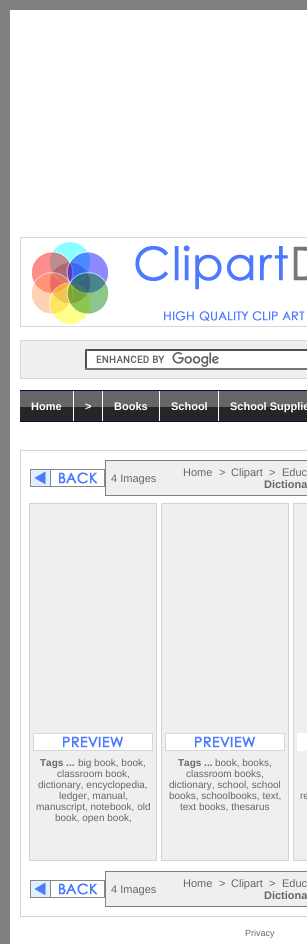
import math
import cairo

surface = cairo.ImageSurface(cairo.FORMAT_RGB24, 307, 944)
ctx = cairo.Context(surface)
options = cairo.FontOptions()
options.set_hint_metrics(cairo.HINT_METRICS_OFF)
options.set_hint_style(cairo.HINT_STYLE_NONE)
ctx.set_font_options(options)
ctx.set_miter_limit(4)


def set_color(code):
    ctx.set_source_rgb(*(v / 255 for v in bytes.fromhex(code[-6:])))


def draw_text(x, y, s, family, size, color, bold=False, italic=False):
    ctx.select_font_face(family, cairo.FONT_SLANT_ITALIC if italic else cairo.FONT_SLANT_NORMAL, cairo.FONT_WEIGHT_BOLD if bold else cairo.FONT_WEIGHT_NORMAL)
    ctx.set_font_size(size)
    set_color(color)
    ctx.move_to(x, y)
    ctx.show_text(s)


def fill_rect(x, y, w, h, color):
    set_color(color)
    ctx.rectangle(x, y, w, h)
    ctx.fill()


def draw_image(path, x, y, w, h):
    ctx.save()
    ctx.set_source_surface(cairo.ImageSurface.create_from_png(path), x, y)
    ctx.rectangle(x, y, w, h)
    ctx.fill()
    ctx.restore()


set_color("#808080")
ctx.paint()
fill_rect(10, 10, 297, 934, "#ffffff")
draw_image("assets/img1.png", 20, 237, 287, 90)
set_color("#efefef")
ctx.rectangle(20.5, 340.5, 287, 38)
ctx.fill_preserve()
set_color("#d7d7d7")
ctx.set_line_width(1)
ctx.stroke()
fill_rect(85, 349, 222, 21, "#ffffff")
draw_image("assets/img2.png", 96, 352, 123, 15)
set_color("#4f4f4f")
ctx.new_path()
ctx.move_to(85, 349)
ctx.line_to(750, 349)
ctx.line_to(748, 351)
ctx.line_to(87, 351)
ctx.close_path()
ctx.fill()
set_color("#767676")
ctx.new_path()
ctx.move_to(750, 370)
ctx.line_to(85, 370)
ctx.line_to(87, 368)
ctx.line_to(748, 368)
ctx.close_path()
ctx.fill()
set_color("#4f4f4f")
ctx.new_path()
ctx.move_to(85, 370)
ctx.line_to(85, 349)
ctx.line_to(87, 351)
ctx.line_to(87, 368)
ctx.close_path()
ctx.fill()
draw_image("assets/img3.png", 20, 391, 287, 30)
fill_rect(20, 390, 287, 1, "#001044")
fill_rect(20, 421, 287, 1, "#001044")
fill_rect(73, 391, 1, 30, "#ffffff")
draw_text(31, 410, "Home", "Liberation Sans", 11, "#ffffff", bold=True)
fill_rect(102, 391, 1, 30, "#ffffff")
draw_text(85, 410, ">", "Liberation Sans", 11, "#ffffff", bold=True)
fill_rect(159, 391, 1, 30, "#ffffff")
draw_text(114, 410, "Books", "Liberation Sans", 11, "#ffffff", bold=True)
fill_rect(218, 391, 1, 30, "#ffffff")
draw_text(171, 410, "School", "Liberation Sans", 11, "#ffffff", bold=True)
draw_text(230, 410, "School Supplie", "Liberation Sans", 11, "#ffffff", bold=True)
fill_rect(20, 450, 287, 1, "#d2d2d8")
fill_rect(20, 916, 287, 1, "#d2d2d8")
fill_rect(20, 450, 1, 467, "#d2d2d8")
draw_image("assets/img4.png", 30, 469, 75, 18)
fill_rect(105, 460, 202, 1, "#808080")
fill_rect(105, 495, 202, 1, "#808080")
fill_rect(105, 460, 1, 36, "#808080")
fill_rect(106, 461, 201, 34, "#efefef")
draw_text(111, 482, "4 Images", "Liberation Sans", 11, "#666666")
draw_text(183, 476, "Home", "Liberation Sans", 11, "#666666")
draw_text(219, 476, ">", "Liberation Sans", 11, "#666666")
draw_text(231, 476, "Clipart", "Liberation Sans", 11, "#666666")
draw_text(269, 476, ">", "Liberation Sans", 11, "#666666")
draw_text(282, 476, "Educ", "Liberation Sans", 11, "#666666")
draw_text(264, 488, "Dictiona", "Liberation Sans", 11, "#666666", bold=True)
fill_rect(29, 503, 128, 1, "#d2d2d8")
fill_rect(156, 503, 1, 358, "#d2d2d8")
fill_rect(29, 860, 128, 1, "#d2d2d8")
fill_rect(29, 503, 1, 358, "#d2d2d8")
fill_rect(30, 504, 126, 356, "#efefef")
draw_image("assets/img5.png", 33, 733, 120, 18)
draw_text(40, 766, "Tags ...", "Liberation Sans", 10, "#666666", bold=True)
draw_text(78, 766, "big book, book,", "Liberation Sans", 10, "#666666")
draw_text(57, 777, "classroom book,", "Liberation Sans", 10, "#666666")
draw_text(38, 788, "dictionary, encyclopedia,", "Liberation Sans", 10, "#666666")
draw_text(59, 799, "ledger, manual,", "Liberation Sans", 10, "#666666")
draw_text(36, 810, "manuscript, notebook, old", "Liberation Sans", 10, "#666666")
draw_text(55, 821, "book, open book,", "Liberation Sans", 10, "#666666")
fill_rect(161, 503, 128, 1, "#d2d2d8")
fill_rect(288, 503, 1, 358, "#d2d2d8")
fill_rect(161, 860, 128, 1, "#d2d2d8")
fill_rect(161, 503, 1, 358, "#d2d2d8")
fill_rect(162, 504, 126, 356, "#efefef")
draw_image("assets/img5.png", 165, 733, 120, 18)
draw_text(178, 766, "Tags ...", "Liberation Sans", 10, "#666666", bold=True)
draw_text(215, 766, "book, books,", "Liberation Sans", 10, "#666666")
draw_text(186, 777, "classroom books,", "Liberation Sans", 10, "#666666")
draw_text(169, 788, "dictionary, school, school", "Liberation Sans", 10, "#666666")
draw_text(169, 799, "books, schoolbooks, text,", "Liberation Sans", 10, "#666666")
draw_text(180, 810, "text books, thesarus", "Liberation Sans", 10, "#666666")
fill_rect(293, 503, 14, 1, "#d2d2d8")
fill_rect(293, 860, 14, 1, "#d2d2d8")
fill_rect(293, 503, 1, 358, "#d2d2d8")
fill_rect(294, 504, 13, 356, "#efefef")
fill_rect(297, 733, 10, 18, "#ffffff")
draw_text(300, 799, "re", "Liberation Sans", 10, "#666666")
draw_image("assets/img4.png", 30, 880, 75, 18)
fill_rect(105, 871, 202, 1, "#808080")
fill_rect(105, 906, 202, 1, "#808080")
fill_rect(105, 871, 1, 36, "#808080")
fill_rect(106, 872, 201, 34, "#efefef")
draw_text(111, 893, "4 Images", "Liberation Sans", 11, "#666666")
draw_text(183, 887, "Home", "Liberation Sans", 11, "#666666")
draw_text(219, 887, ">", "Liberation Sans", 11, "#666666")
draw_text(231, 887, "Clipart", "Liberation Sans", 11, "#666666")
draw_text(269, 887, ">", "Liberation Sans", 11, "#666666")
draw_text(282, 887, "Educ", "Liberation Sans", 11, "#666666")
draw_text(264, 899, "Dictiona", "Liberation Sans", 11, "#666666", bold=True)
draw_text(245, 936, "Privacy", "Liberation Sans", 9, "#666666")
surface.write_to_png("output.png")
